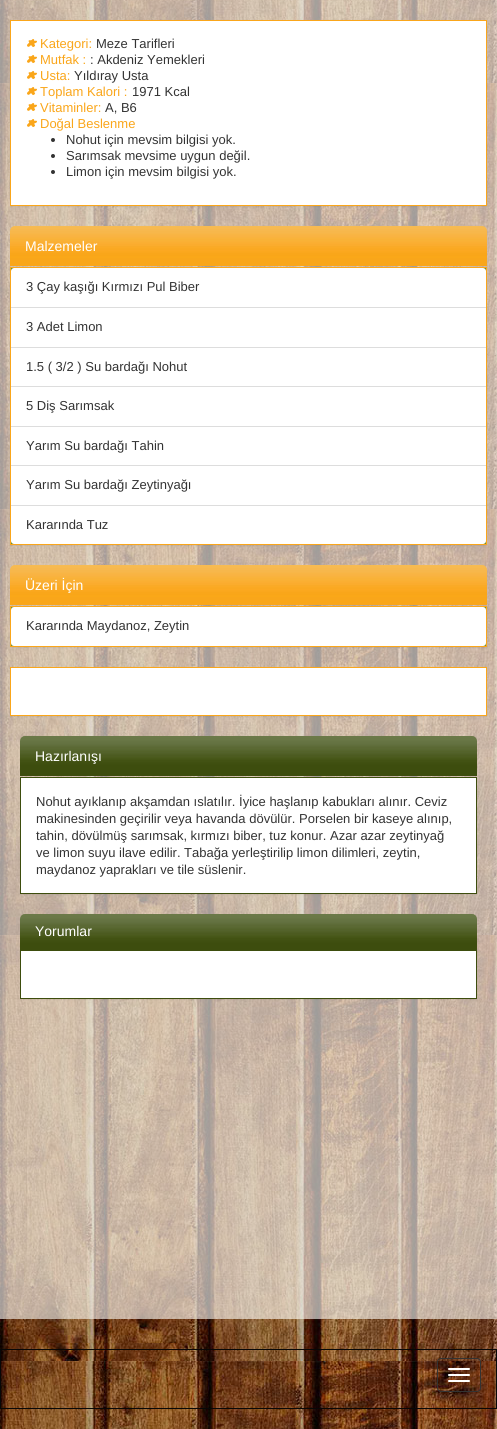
import math
import cairo

surface = cairo.ImageSurface(cairo.FORMAT_RGB24, 497, 1429)
ctx = cairo.Context(surface)
options = cairo.FontOptions()
options.set_hint_metrics(cairo.HINT_METRICS_OFF)
options.set_hint_style(cairo.HINT_STYLE_NONE)
ctx.set_font_options(options)
ctx.set_miter_limit(4)


def set_color(code):
    ctx.set_source_rgb(*(v / 255 for v in bytes.fromhex(code[-6:])))


def draw_text(x, y, s, family, size, color, bold=False, italic=False):
    ctx.select_font_face(family, cairo.FONT_SLANT_ITALIC if italic else cairo.FONT_SLANT_NORMAL, cairo.FONT_WEIGHT_BOLD if bold else cairo.FONT_WEIGHT_NORMAL)
    ctx.set_font_size(size)
    set_color(color)
    ctx.move_to(x, y)
    ctx.show_text(s)


def fill_rect(x, y, w, h, color):
    set_color(color)
    ctx.rectangle(x, y, w, h)
    ctx.fill()


def rounded_rect(x, y, w, h, r):
    ctx.new_sub_path()
    for i, (u, v) in enumerate([(x + w - r, y + h - r), (x + r, y + h - r), (x + r, y + r), (x + w - r, y + r)]):
        ctx.arc(u, v, r, i * math.pi / 2, (i + 1) * math.pi / 2)
    ctx.close_path()


def draw_shadow(x, y, w, h, r, blur, alpha):
    ctx.push_group_with_content(cairo.CONTENT_ALPHA)
    ctx.set_operator(cairo.OPERATOR_SOURCE)
    for i in range(15, -16, -2):
        e = blur * i / 6
        if min(w, h) + 2 * e > 0:
            ctx.set_source_rgba(0, 0, 0, alpha * math.erfc((i - 1) / 8.5) / 2)
            rounded_rect(x - e, y - e, w + 2 * e, h + 2 * e, max(0, min(r + e + blur * .6, min(w, h) / 2 + e)))
            ctx.fill()
    ctx.mask(ctx.pop_group())


def draw_image(path, x, y, w, h):
    ctx.save()
    ctx.set_source_surface(cairo.ImageSurface.create_from_png(path), x, y)
    ctx.rectangle(x, y, w, h)
    ctx.fill()
    ctx.restore()


set_color("#ffffff")
ctx.paint()
draw_image("assets/img1.png", 0, 0, 497, 1429)
set_color("#000000")
draw_shadow(10, 21, 477, 186, 0, 0.5, 0.05)
set_color("#ffffff")
ctx.rectangle(10.5, 20.5, 476, 185)
ctx.fill_preserve()
set_color("#faa61a")
ctx.set_line_width(1)
ctx.stroke()
draw_image("assets/img2.png", 27, 39, 10, 8)
draw_text(40, 48, "Kategori:", "Liberation Sans", 13, "#faa61a")
draw_text(96, 48, "Meze Tarifleri", "Liberation Sans", 13, "#333333")
draw_image("assets/img2.png", 27, 55, 10, 8)
draw_text(40, 64, "Mutfak :", "Liberation Sans", 13, "#faa61a")
draw_text(90, 64, ": Akdeniz Yemekleri", "Liberation Sans", 13, "#333333")
draw_image("assets/img2.png", 27, 71, 10, 8)
draw_text(40, 80, "Usta:", "Liberation Sans", 13, "#faa61a")
draw_text(74, 80, "Yıldıray Usta", "Liberation Sans", 13, "#333333")
draw_image("assets/img2.png", 27, 87, 10, 8)
draw_text(40, 96, "Toplam Kalori :", "Liberation Sans", 13, "#faa61a")
draw_text(132, 96, "1971 Kcal", "Liberation Sans", 13, "#333333")
draw_image("assets/img2.png", 27, 103, 10, 8)
draw_text(40, 112, "Vitaminler:", "Liberation Sans", 13, "#faa61a")
draw_text(105, 112, "A, B6", "Liberation Sans", 13, "#333333")
draw_image("assets/img2.png", 27, 119, 10, 8)
draw_text(40, 128, "Doğal Beslenme", "Liberation Sans", 13, "#faa61a")
set_color("#333333")
ctx.new_path()
ctx.arc(53, 140, 2, 0, 2 * math.pi)
ctx.fill()
draw_text(66, 144, "Nohut için mevsim bilgisi yok.", "Liberation Sans", 13, "#333333")
ctx.new_path()
ctx.arc(53, 156, 2, 0, 2 * math.pi)
ctx.fill()
draw_text(66, 160, "Sarımsak mevsime uygun değil.", "Liberation Sans", 13, "#333333")
ctx.new_path()
ctx.arc(53, 172, 2, 0, 2 * math.pi)
ctx.fill()
draw_text(66, 176, "Limon için mevsim bilgisi yok.", "Liberation Sans", 13, "#333333")
draw_image("assets/img3.png", 10, 226, 477, 40)
draw_text(25, 251, "Malzemeler", "Liberation Sans", 14, "#ffffff")
set_color("#000000")
draw_shadow(10, 268, 477, 278, 0, 0.5, 0.05)
set_color("#748f28")
ctx.rectangle(10.5, 267.5, 476, 277)
ctx.fill_preserve()
set_color("#faa61a")
ctx.stroke()
set_color("#ffffff")
ctx.new_path()
ctx.move_to(14, 268)
ctx.line_to(483, 268)
ctx.curve_to(484.5, 268, 486, 269.5, 486, 271)
ctx.line_to(486, 308)
ctx.line_to(11, 308)
ctx.line_to(11, 271)
ctx.curve_to(11, 269.5, 12.5, 268, 14, 268)
ctx.close_path()
ctx.fill()
fill_rect(11, 307, 475, 1, "#dddddd")
draw_text(26, 291, "3 Çay kaşığı Kırmızı Pul Biber", "Liberation Sans", 13, "#333333")
fill_rect(11, 308, 475, 39, "#ffffff")
fill_rect(11, 347, 475, 1, "#dddddd")
draw_text(26, 331, "3 Adet Limon", "Liberation Sans", 13, "#333333")
fill_rect(11, 348, 475, 38, "#ffffff")
fill_rect(11, 386, 475, 1, "#dddddd")
draw_text(26, 371, "1.5 ( 3/2 ) Su bardağı Nohut", "Liberation Sans", 13, "#333333")
fill_rect(11, 387, 475, 39, "#ffffff")
fill_rect(11, 426, 475, 1, "#dddddd")
draw_text(26, 410, "5 Diş Sarımsak", "Liberation Sans", 13, "#333333")
fill_rect(11, 427, 475, 38, "#ffffff")
fill_rect(11, 465, 475, 1, "#dddddd")
draw_text(26, 450, "Yarım Su bardağı Tahin", "Liberation Sans", 13, "#333333")
fill_rect(11, 466, 475, 39, "#ffffff")
draw_text(26, 489, "Yarım Su bardağı Zeytinyağı", "Liberation Sans", 13, "#333333")
set_color("#ffffff")
ctx.new_path()
ctx.move_to(11, 505)
ctx.line_to(486, 505)
ctx.line_to(486, 541)
ctx.curve_to(486, 542.5, 484.5, 544, 483, 544)
ctx.line_to(14, 544)
ctx.curve_to(12.5, 544, 11, 542.5, 11, 541)
ctx.close_path()
ctx.fill()
fill_rect(11, 505, 475, 1, "#dddddd")
draw_text(26, 529, "Kararında Tuz", "Liberation Sans", 13, "#333333")
draw_image("assets/img4.png", 10, 565, 477, 40)
draw_text(25, 590, "Üzeri İçin", "Liberation Sans", 14, "#ffffff")
set_color("#000000")
draw_shadow(10, 607, 477, 41, 0, 0.5, 0.05)
set_color("#748f28")
ctx.rectangle(10.5, 606.5, 476, 40)
ctx.fill_preserve()
set_color("#faa61a")
ctx.stroke()
set_color("#ffffff")
rounded_rect(11, 607, 475, 39, 3)
ctx.fill()
draw_text(26, 630, "Kararında Maydanoz, Zeytin", "Liberation Sans", 13, "#333333")
set_color("#000000")
draw_shadow(10, 668, 477, 49, 0, 0.5, 0.05)
set_color("#ffffff")
ctx.rectangle(10.5, 667.5, 476, 48)
ctx.fill_preserve()
set_color("#faa61a")
ctx.stroke()
draw_image("assets/img5.png", 20, 736, 457, 40)
draw_text(35, 761, "Hazırlanışı", "Liberation Sans", 14, "#ffffff")
set_color("#000000")
draw_shadow(20, 778, 457, 117, 0, 0.5, 0.05)
set_color("#ffffff")
ctx.rectangle(20.5, 777.5, 456, 116)
ctx.fill_preserve()
set_color("#3d4d0d")
ctx.stroke()
draw_text(36, 806, "Nohut ayıklanıp akşamdan ıslatılır. İyice haşlanıp kabukları alınır. Ceviz", "Liberation Sans", 13, "#333333")
draw_text(36, 823, "makinesinden geçirilir veya havanda dövülür. Porselen bir kaseye alınıp,", "Liberation Sans", 13, "#333333")
draw_text(36, 840, "tahin, dövülmüş sarımsak, kırmızı biber, tuz konur. Azar azar zeytinyağ", "Liberation Sans", 13, "#333333")
draw_text(36, 857, "ve limon suyu ilave edilir. Tabağa yerleştirilip limon dilimleri, zeytin,", "Liberation Sans", 13, "#333333")
draw_text(36, 874, "maydanoz yaprakları ve tile süslenir.", "Liberation Sans", 13, "#333333")
draw_image("assets/img6.png", 20, 914, 457, 36)
draw_text(35, 936, "Yorumlar", "Liberation Sans", 14, "#ffffff")
set_color("#000000")
draw_shadow(20, 951, 457, 49, 0, 0.5, 0.05)
set_color("#ffffff")
ctx.rectangle(20.5, 950.5, 456, 48)
ctx.fill_preserve()
set_color("#3d4d0d")
ctx.stroke()
ctx.rectangle(0.5, 1349.5, 496, 59)
set_color("#080808")
ctx.stroke()
rounded_rect(437.5, 1358.5, 43, 33, 3.5)
set_color("#333333")
ctx.stroke()
set_color("#ffffff")
rounded_rect(448, 1368, 22, 2, 1)
ctx.fill()
rounded_rect(448, 1374, 22, 2, 1)
ctx.fill()
rounded_rect(448, 1380, 22, 2, 1)
ctx.fill()
surface.write_to_png("output.png")
